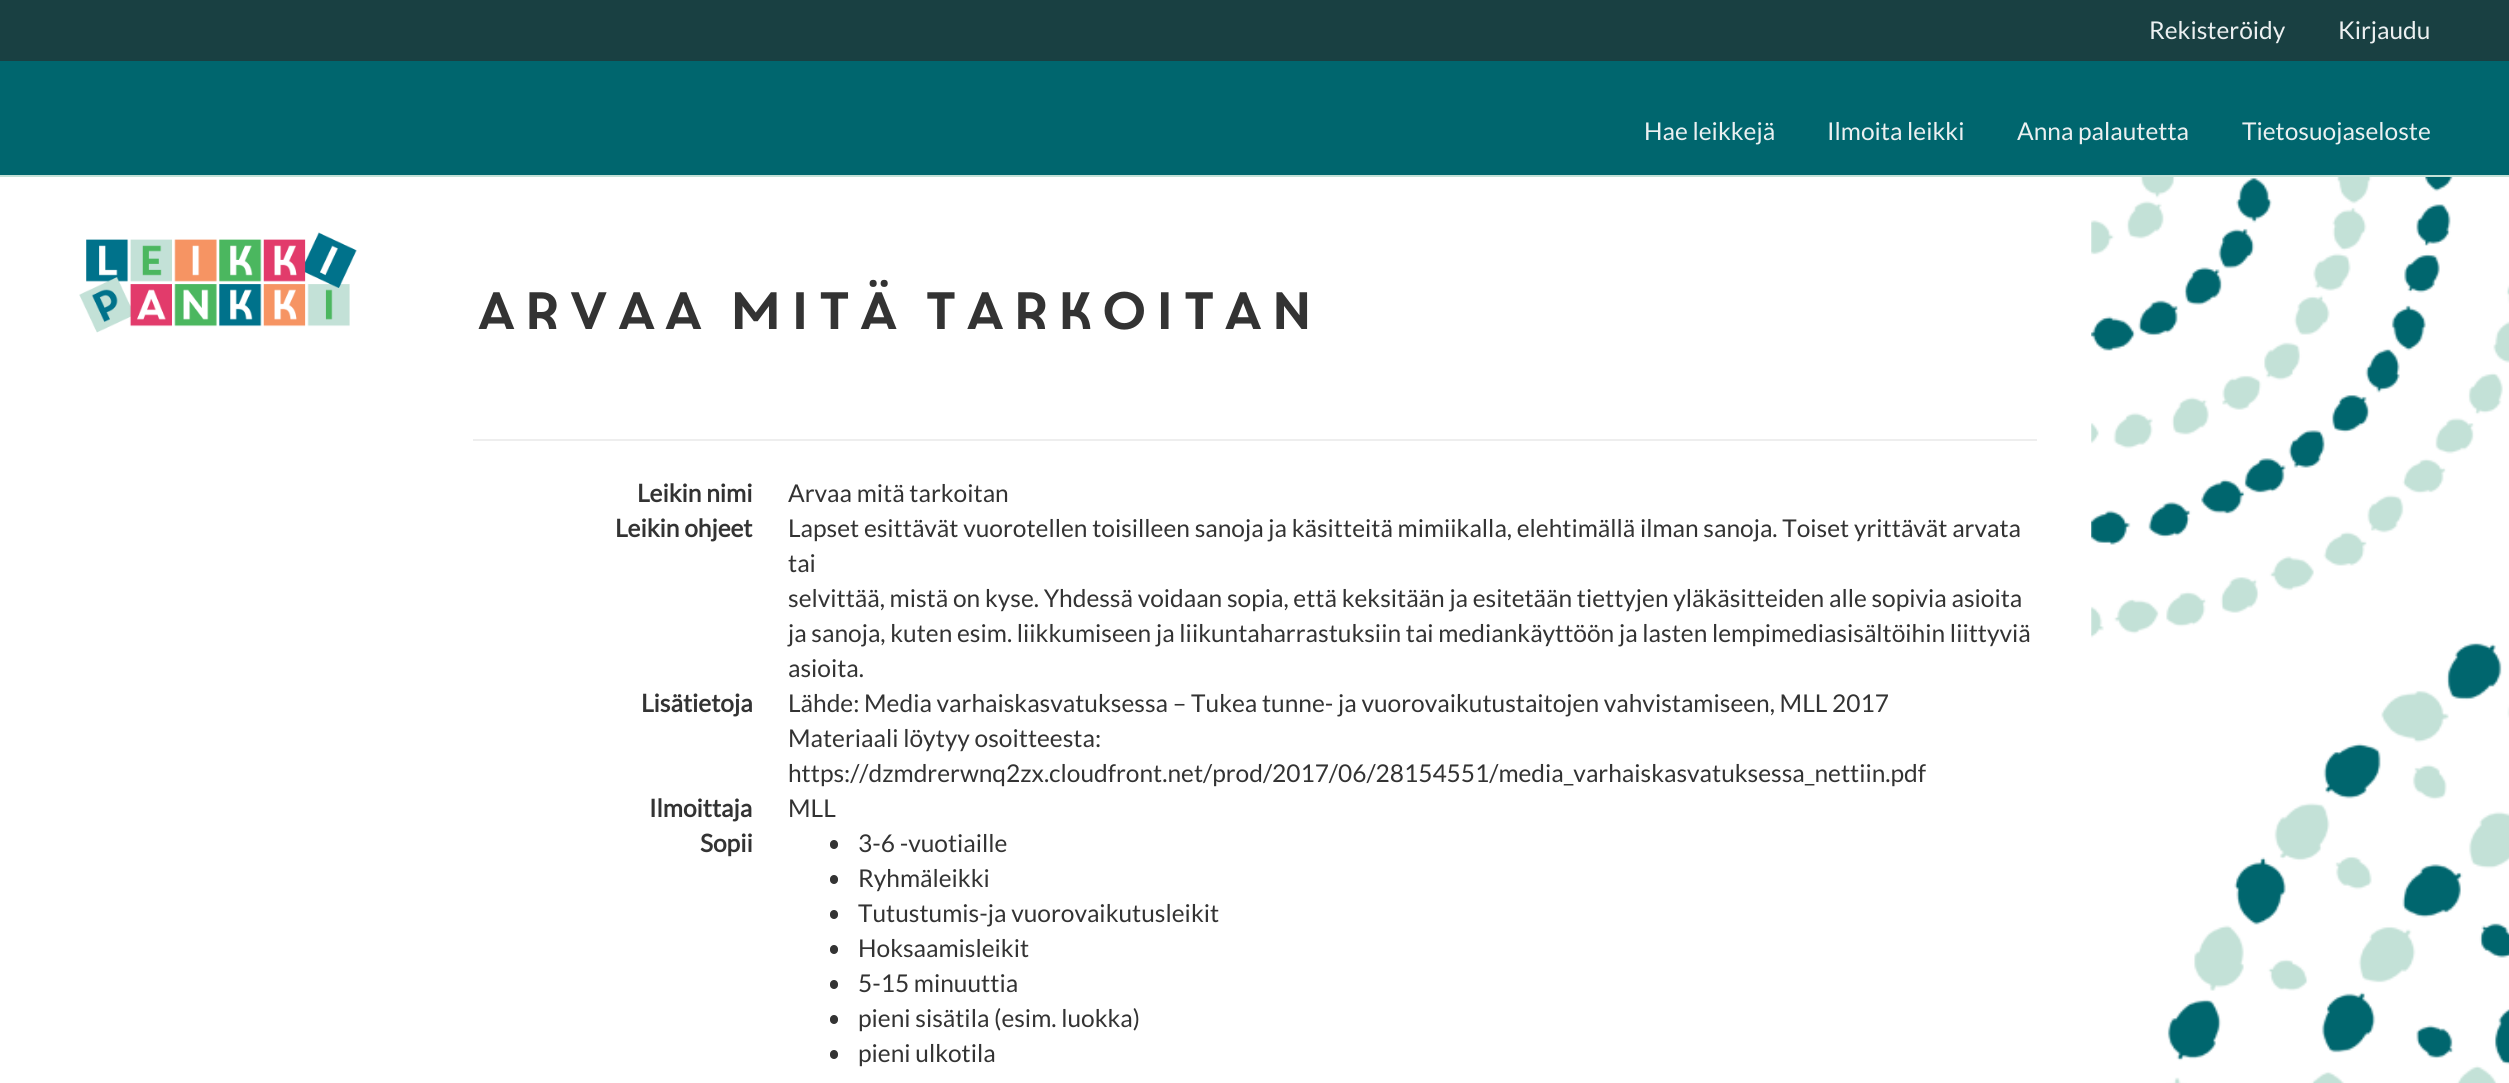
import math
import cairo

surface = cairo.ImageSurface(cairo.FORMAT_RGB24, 2509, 1083)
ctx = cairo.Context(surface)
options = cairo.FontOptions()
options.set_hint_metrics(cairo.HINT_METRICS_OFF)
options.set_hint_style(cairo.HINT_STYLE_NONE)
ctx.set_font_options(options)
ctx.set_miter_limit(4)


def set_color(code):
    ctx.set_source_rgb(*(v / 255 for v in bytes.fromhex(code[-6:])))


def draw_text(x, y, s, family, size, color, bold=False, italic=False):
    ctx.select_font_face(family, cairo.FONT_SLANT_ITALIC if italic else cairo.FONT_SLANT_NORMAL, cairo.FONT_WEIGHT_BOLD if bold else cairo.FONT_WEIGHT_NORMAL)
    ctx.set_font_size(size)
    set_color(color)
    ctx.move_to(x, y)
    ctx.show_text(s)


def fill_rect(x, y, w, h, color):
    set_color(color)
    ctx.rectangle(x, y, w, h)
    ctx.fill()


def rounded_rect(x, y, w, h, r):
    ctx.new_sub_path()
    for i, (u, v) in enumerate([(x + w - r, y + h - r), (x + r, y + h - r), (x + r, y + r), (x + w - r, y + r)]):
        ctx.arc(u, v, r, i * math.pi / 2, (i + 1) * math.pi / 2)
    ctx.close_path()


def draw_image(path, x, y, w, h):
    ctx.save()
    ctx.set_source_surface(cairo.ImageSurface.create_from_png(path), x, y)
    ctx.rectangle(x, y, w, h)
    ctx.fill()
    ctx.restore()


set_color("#ffffff")
ctx.paint()
fill_rect(0, 61, 2509, 114, "#00666e")
fill_rect(0, 175, 2509, 2, "#c3e1d7")
fill_rect(0, 0, 2509, 61, "#194042")
draw_text(2149, 39, "Rekisteröidy", "Lato", 24.5, "#ecf0f1")
draw_text(2338, 39, "Kirjaudu", "Lato", 24.5, "#ecf0f1")
draw_text(1644, 140, "Hae leikkejä", "Lato", 24.5, "#ecf0f1")
draw_text(1827, 140, "Ilmoita leikki", "Lato", 24.5, "#ecf0f1")
draw_text(2017, 140, "Anna palautetta", "Lato", 24.5, "#ecf0f1")
draw_text(2242, 140, "Tietosuojaseloste", "Lato", 24.5, "#ecf0f1")
draw_image("assets/img1.png", 79, 232, 278, 101)
draw_text(473, 329, "Arvaa mitä tarkoitan", "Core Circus", 52.5, "#333333")
fill_rect(473, 439, 1564, 2, "#eeeeee")
draw_text(637, 502, "Leikin nimi", "Lato", 24.5, "#333333", bold=True)
draw_text(788, 502, "Arvaa mitä tarkoitan", "Lato", 24.5, "#333333")
draw_text(615, 537, "Leikin ohjeet", "Lato", 24.5, "#333333", bold=True)
draw_text(788, 537, "Lapset esittävät vuorotellen toisilleen sanoja ja käsitteitä mimiikalla, elehtimällä ilman sanoja. Toiset yrittävät arvata", "Lato", 24.5, "#333333")
draw_text(788, 572, "tai", "Lato", 24.5, "#333333")
draw_text(788, 607, "selvittää, mistä on kyse. Yhdessä voidaan sopia, että keksitään ja esitetään tiettyjen yläkäsitteiden alle sopivia asioita", "Lato", 24.5, "#333333")
draw_text(788, 642, "ja sanoja, kuten esim. liikkumiseen ja liikuntaharrastuksiin tai mediankäyttöön ja lasten lempimediasisältöihin liittyviä", "Lato", 24.5, "#333333")
draw_text(788, 677, "asioita.", "Lato", 24.5, "#333333")
draw_text(641, 712, "Lisätietoja", "Lato", 24.5, "#333333", bold=True)
draw_text(788, 712, "Lähde: Media varhaiskasvatuksessa – Tukea tunne- ja vuorovaikutustaitojen vahvistamiseen, MLL 2017", "Lato", 24.5, "#333333")
draw_text(788, 747, "Materiaali löytyy osoitteesta:", "Lato", 24.5, "#333333")
draw_text(788, 782, "https://dzmdrerwnq2zx.cloudfront.net/prod/2017/06/28154551/media_varhaiskasvatuksessa_nettiin.pdf", "Lato", 24.5, "#333333")
draw_text(649, 817, "Ilmoittaja", "Lato", 24.5, "#333333", bold=True)
draw_text(788, 817, "MLL", "Lato", 24.5, "#333333")
draw_text(700, 852, "Sopii", "Lato", 24.5, "#333333", bold=True)
rounded_rect(830, 840, 8, 9, 4)
ctx.fill()
draw_text(858, 852, "3-6 -vuotiaille", "Lato", 24.5, "#333333")
rounded_rect(830, 875, 8, 9, 4)
ctx.fill()
draw_text(858, 887, "Ryhmäleikki", "Lato", 24.5, "#333333")
rounded_rect(830, 910, 8, 9, 4)
ctx.fill()
draw_text(858, 922, "Tutustumis-ja vuorovaikutusleikit", "Lato", 24.5, "#333333")
rounded_rect(830, 945, 8, 9, 4)
ctx.fill()
draw_text(858, 957, "Hoksaamisleikit", "Lato", 24.5, "#333333")
rounded_rect(830, 980, 8, 9, 4)
ctx.fill()
draw_text(858, 992, "5-15 minuuttia", "Lato", 24.5, "#333333")
rounded_rect(830, 1015, 8, 9, 4)
ctx.fill()
draw_text(858, 1027, "pieni sisätila (esim. luokka)", "Lato", 24.5, "#333333")
rounded_rect(830, 1050, 8, 9, 4)
ctx.fill()
draw_text(858, 1062, "pieni ulkotila", "Lato", 24.5, "#333333")
draw_image("assets/img2.png", 2091, 177, 418, 906)
surface.write_to_png("output.png")
